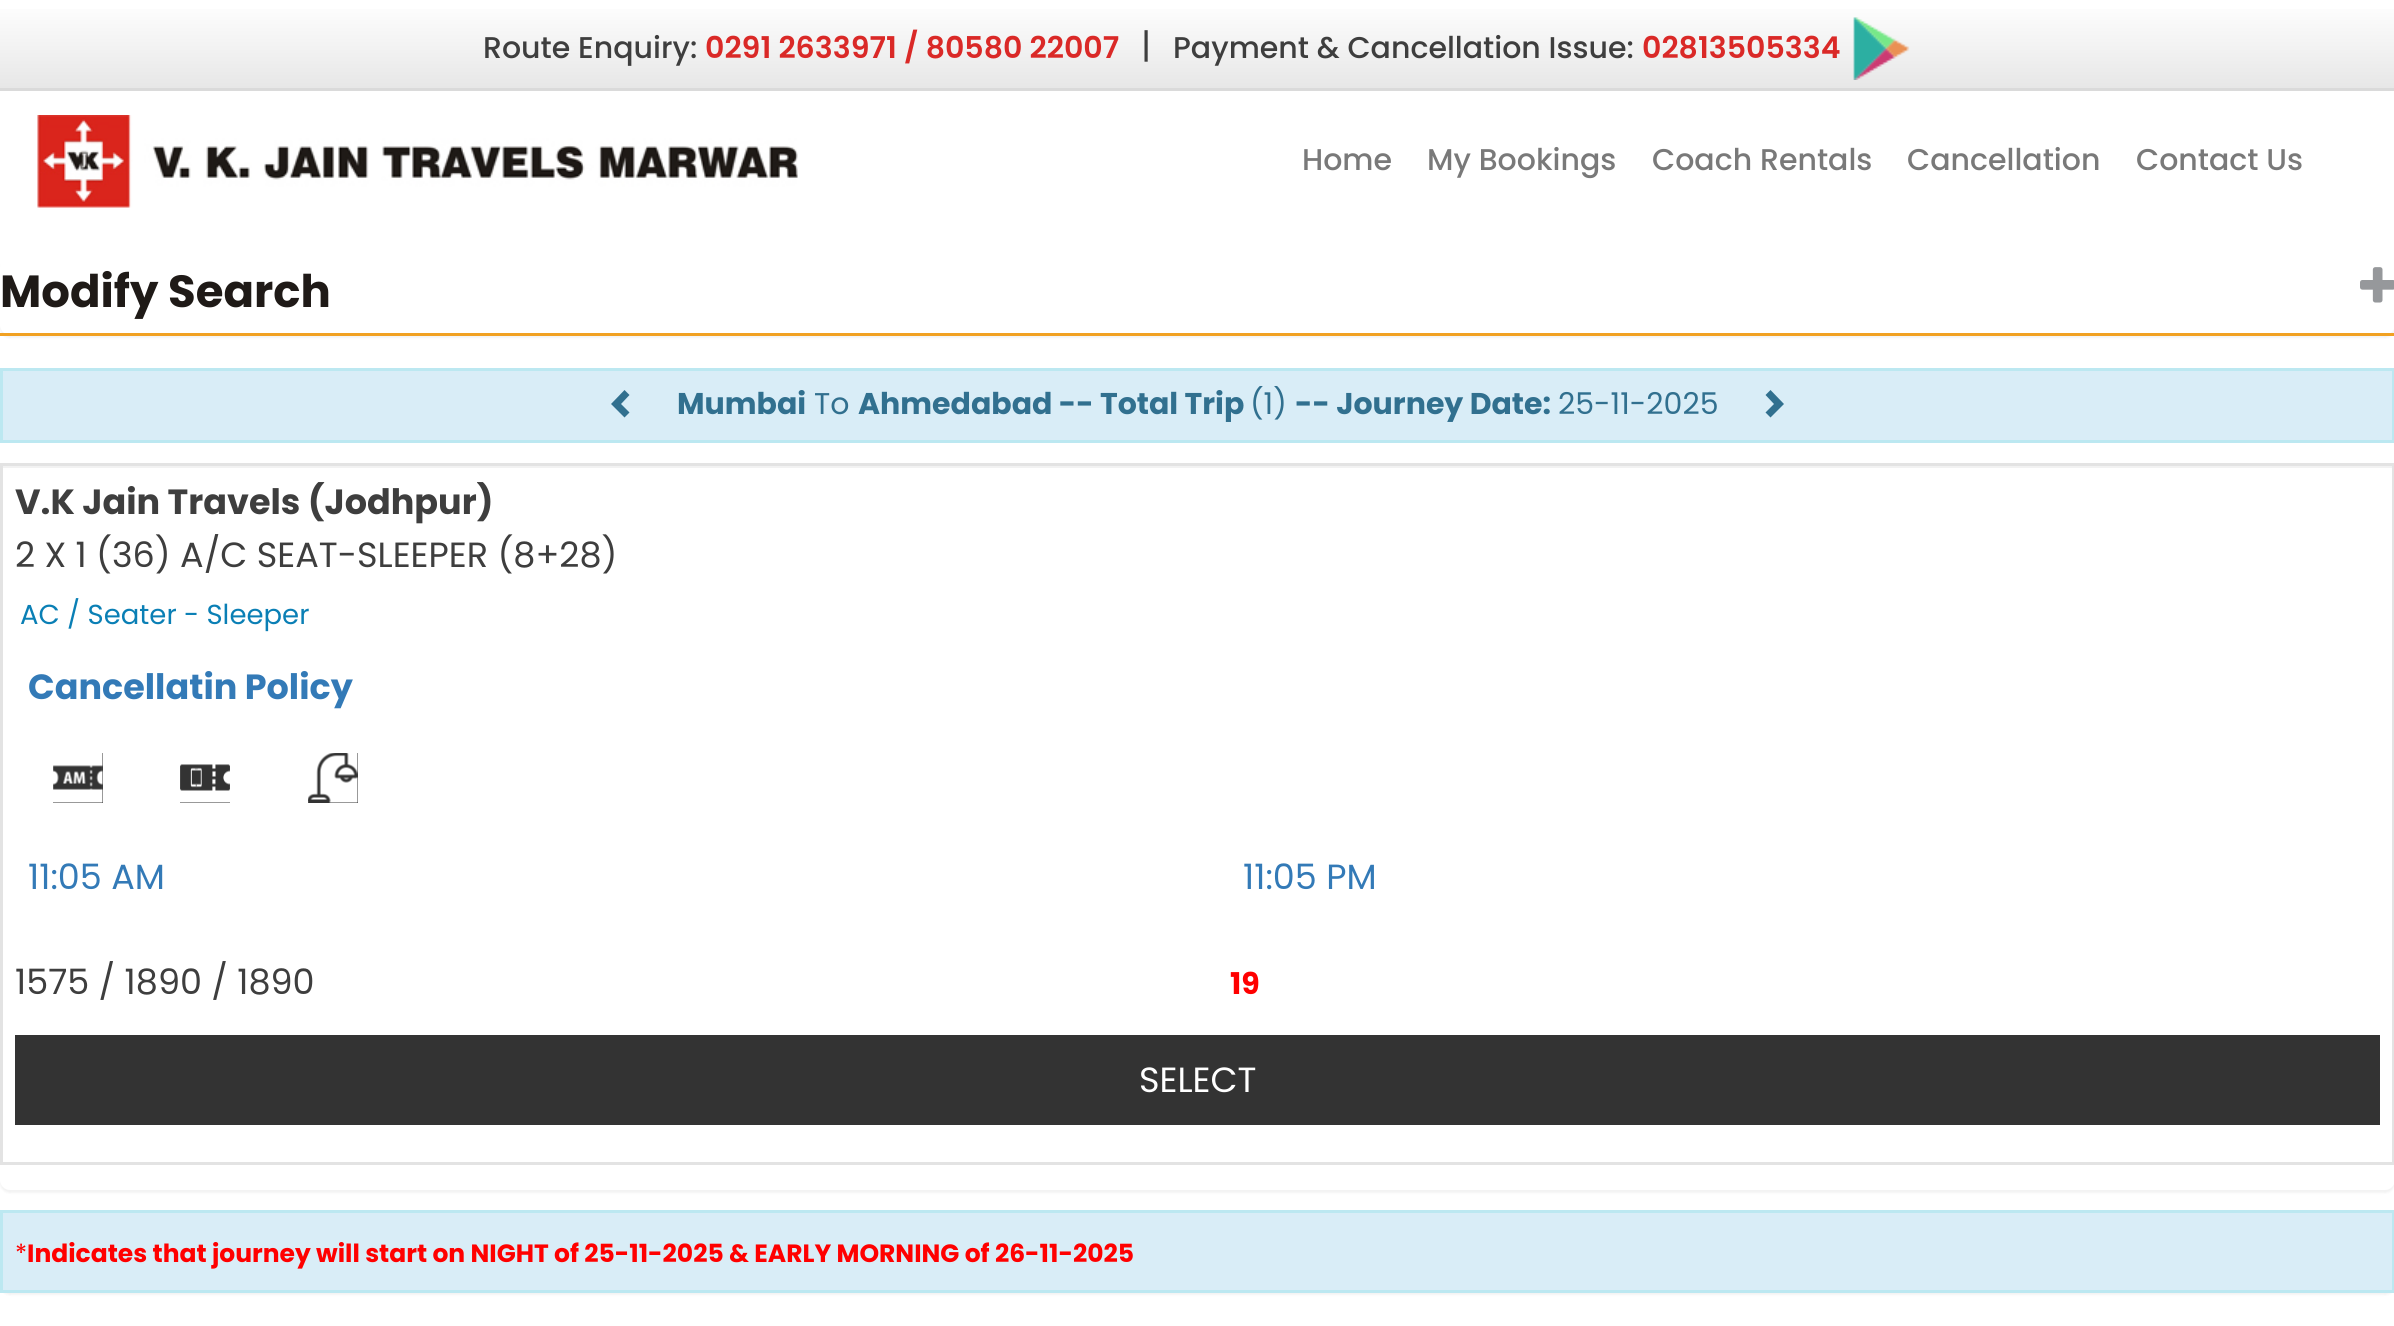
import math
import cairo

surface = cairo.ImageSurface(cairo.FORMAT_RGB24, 2394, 1326)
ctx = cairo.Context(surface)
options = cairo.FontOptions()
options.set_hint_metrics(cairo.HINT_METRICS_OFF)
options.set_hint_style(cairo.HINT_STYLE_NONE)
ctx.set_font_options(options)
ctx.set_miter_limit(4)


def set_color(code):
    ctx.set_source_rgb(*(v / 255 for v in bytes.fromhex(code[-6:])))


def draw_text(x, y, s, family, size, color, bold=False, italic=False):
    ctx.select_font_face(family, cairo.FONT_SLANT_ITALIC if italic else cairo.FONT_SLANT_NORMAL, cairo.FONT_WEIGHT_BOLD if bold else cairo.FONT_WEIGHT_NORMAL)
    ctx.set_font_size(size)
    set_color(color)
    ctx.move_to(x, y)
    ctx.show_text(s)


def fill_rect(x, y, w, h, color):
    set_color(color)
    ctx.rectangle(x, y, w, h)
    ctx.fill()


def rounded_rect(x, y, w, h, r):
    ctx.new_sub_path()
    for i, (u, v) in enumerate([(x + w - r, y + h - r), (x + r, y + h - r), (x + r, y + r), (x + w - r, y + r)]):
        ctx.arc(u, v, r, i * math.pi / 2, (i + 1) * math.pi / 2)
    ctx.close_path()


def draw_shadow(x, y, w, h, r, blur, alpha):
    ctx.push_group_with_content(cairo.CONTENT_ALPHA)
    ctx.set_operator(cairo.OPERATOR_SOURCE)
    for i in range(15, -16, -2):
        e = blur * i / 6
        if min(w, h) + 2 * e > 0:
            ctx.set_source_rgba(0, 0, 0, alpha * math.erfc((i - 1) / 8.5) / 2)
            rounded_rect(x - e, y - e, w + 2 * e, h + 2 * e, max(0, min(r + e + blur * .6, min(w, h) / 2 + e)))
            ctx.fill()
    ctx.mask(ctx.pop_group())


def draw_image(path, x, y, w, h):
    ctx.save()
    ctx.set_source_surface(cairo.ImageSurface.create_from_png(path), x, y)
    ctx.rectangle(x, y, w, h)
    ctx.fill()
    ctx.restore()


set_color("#ffffff")
ctx.paint()
gradient = cairo.LinearGradient(1198, 0, 1198, 88)
gradient.add_color_stop_rgba(0, 1, 1, 1, 1)
gradient.add_color_stop_rgba(1, 0.906, 0.906, 0.906, 1)
ctx.set_source(gradient)
ctx.rectangle(0, 9, 2394, 79)
ctx.fill()
fill_rect(0, 88, 2394, 3, "#dadada")
draw_text(483, 58, "Route Enquiry:", "Poppins Medium", 30, "#3e3e3e")
draw_text(705, 58, "0291 2633971 / 80580 22007", "Poppins SemiBold", 30, "#da2927")
draw_text(1141, 58, "|", "Poppins", 35, "#3e3e3e")
draw_text(1173, 58, "Payment & Cancellation Issue:", "Poppins Medium", 30, "#3e3e3e")
draw_text(1642, 58, "02813505334", "Poppins SemiBold", 30, "#da2927")
draw_image("assets/img1.png", 1853, 17, 57, 63)
draw_image("assets/img2.png", 37, 115, 761, 93)
draw_text(1302, 170, "Home", "Poppins Medium", 30, "#797979")
draw_text(1427, 170, "My Bookings", "Poppins Medium", 30, "#797979")
draw_text(1652, 170, "Coach Rentals", "Poppins Medium", 30, "#797979")
draw_text(1907, 170, "Cancellation", "Poppins Medium", 30, "#797979")
draw_text(2136, 170, "Contact Us", "Poppins Medium", 30, "#797979")
set_color("#000000")
draw_shadow(0, 260, 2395, 78, 10, 1, 0.05)
set_color("#ffffff")
rounded_rect(0, 258, 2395, 77, 10)
ctx.fill()
fill_rect(0, 333, 2394, 3, "#f1a122")
draw_text(0, 307, "Modify Search", "Poppins", 45, "#1f1a17", bold=True)
draw_image("assets/img3.png", 2360, 267, 34, 36)
set_color("#d9edf7")
ctx.rectangle(1.5, 369.5, 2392, 72)
ctx.fill_preserve()
set_color("#bce8f1")
ctx.set_line_width(3)
ctx.stroke()
set_color("#31708f")
ctx.new_path()
ctx.move_to(629.5, 395)
ctx.line_to(621, 404)
ctx.line_to(629.5, 412.5)
ctx.line_to(624.5, 417.5)
ctx.line_to(611, 404)
ctx.line_to(624.5, 390)
ctx.close_path()
ctx.fill()
draw_text(677, 414, "Mumbai", "Poppins", 30, "#31708f", bold=True)
draw_text(814, 414, "To", "Poppins", 30, "#31708f")
draw_text(858, 414, "Ahmedabad -- Total Trip", "Poppins", 30, "#31708f", bold=True)
draw_text(1250, 414, "(1)", "Poppins", 30, "#31708f")
draw_text(1295, 414, "-- Journey Date:", "Poppins", 30, "#31708f", bold=True)
draw_text(1558, 414, "25-11-2025", "Poppins", 30, "#31708f")
ctx.new_path()
ctx.move_to(1784, 404)
ctx.line_to(1770.5, 417.5)
ctx.line_to(1765.5, 412.5)
ctx.line_to(1774, 404)
ctx.line_to(1765.5, 395)
ctx.line_to(1770.5, 390)
ctx.close_path()
ctx.fill()
set_color("#000000")
draw_shadow(0, 465, 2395, 728, 10, 1, 0.05)
set_color("#ffffff")
rounded_rect(0, 463, 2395, 727, 10)
ctx.fill()
fill_rect(3, 466, 2390, 2, "#f2f2f2")
ctx.rectangle(1.5, 464.5, 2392, 699)
set_color("#e3e3e3")
ctx.stroke()
draw_text(15, 514, "V.K Jain Travels (Jodhpur)", "Poppins", 35, "#3e3e3e", bold=True)
draw_text(15, 567, "2 X 1 (36) A/C SEAT-SLEEPER (8+28)", "Poppins", 35, "#3e3e3e")
draw_text(20, 624, "AC / Seater - Sleeper", "Poppins", 27.5, "#0a7fb5")
draw_text(28, 699, "Cancellatin Policy", "Poppins", 35, "#337ab7", bold=True)
fill_rect(53, 753, 50, 50, "#333333")
draw_image("assets/img4.png", 53, 753, 50, 50)
fill_rect(180, 764, 50, 39, "#333333")
draw_image("assets/img5.png", 180, 753, 50, 50)
fill_rect(308, 753, 50, 50, "#333333")
draw_image("assets/img6.png", 308, 753, 50, 50)
draw_text(28, 889, "11:05 AM", "Poppins", 35, "#337ab7")
draw_text(1243, 889, "11:05 PM", "Poppins", 35, "#337ab7")
draw_text(15, 994, "1575 / 1890 / 1890", "Poppins", 35, "#3e3e3e")
draw_text(1230, 994, "19", "Poppins", 30, "#ff0000", bold=True)
fill_rect(15, 1035, 2365, 90, "#333333")
draw_text(1139, 1092, "SELECT", "Poppins", 35, "#ffffff")
set_color("#000000")
draw_shadow(0, 1213, 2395, 82, 10, 1, 0.05)
set_color("#d9edf7")
ctx.rectangle(1.5, 1211.5, 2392, 80)
ctx.fill_preserve()
set_color("#bce8f1")
ctx.stroke()
draw_text(15, 1262, "*", "Poppins", 25, "#ff0000")
draw_text(27, 1262, "Indicates that journey will start on NIGHT of 25-11-2025 & EARLY MORNING of 26-11-2025", "Poppins", 25, "#ff0000", bold=True)
surface.write_to_png("output.png")
